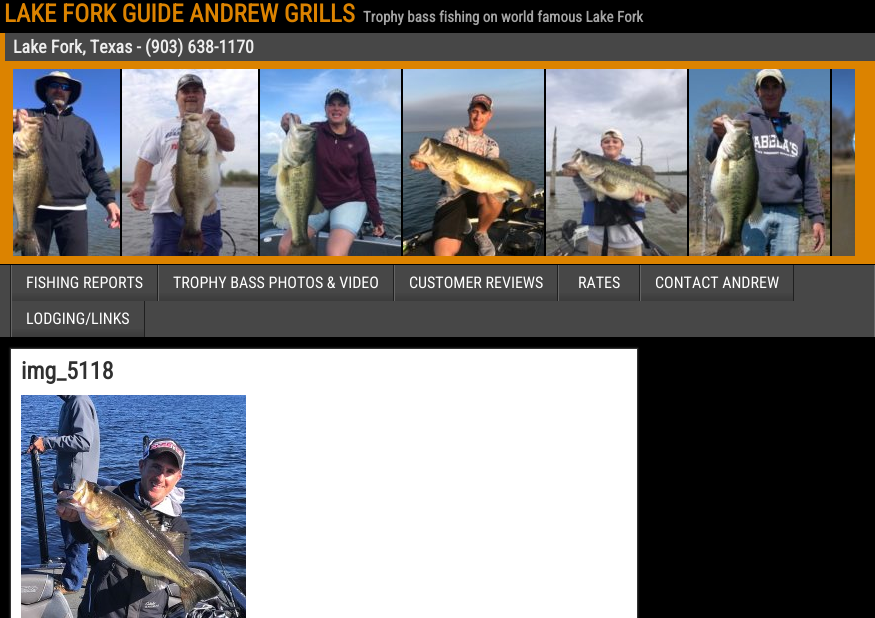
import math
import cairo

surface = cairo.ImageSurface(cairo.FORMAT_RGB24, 875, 618)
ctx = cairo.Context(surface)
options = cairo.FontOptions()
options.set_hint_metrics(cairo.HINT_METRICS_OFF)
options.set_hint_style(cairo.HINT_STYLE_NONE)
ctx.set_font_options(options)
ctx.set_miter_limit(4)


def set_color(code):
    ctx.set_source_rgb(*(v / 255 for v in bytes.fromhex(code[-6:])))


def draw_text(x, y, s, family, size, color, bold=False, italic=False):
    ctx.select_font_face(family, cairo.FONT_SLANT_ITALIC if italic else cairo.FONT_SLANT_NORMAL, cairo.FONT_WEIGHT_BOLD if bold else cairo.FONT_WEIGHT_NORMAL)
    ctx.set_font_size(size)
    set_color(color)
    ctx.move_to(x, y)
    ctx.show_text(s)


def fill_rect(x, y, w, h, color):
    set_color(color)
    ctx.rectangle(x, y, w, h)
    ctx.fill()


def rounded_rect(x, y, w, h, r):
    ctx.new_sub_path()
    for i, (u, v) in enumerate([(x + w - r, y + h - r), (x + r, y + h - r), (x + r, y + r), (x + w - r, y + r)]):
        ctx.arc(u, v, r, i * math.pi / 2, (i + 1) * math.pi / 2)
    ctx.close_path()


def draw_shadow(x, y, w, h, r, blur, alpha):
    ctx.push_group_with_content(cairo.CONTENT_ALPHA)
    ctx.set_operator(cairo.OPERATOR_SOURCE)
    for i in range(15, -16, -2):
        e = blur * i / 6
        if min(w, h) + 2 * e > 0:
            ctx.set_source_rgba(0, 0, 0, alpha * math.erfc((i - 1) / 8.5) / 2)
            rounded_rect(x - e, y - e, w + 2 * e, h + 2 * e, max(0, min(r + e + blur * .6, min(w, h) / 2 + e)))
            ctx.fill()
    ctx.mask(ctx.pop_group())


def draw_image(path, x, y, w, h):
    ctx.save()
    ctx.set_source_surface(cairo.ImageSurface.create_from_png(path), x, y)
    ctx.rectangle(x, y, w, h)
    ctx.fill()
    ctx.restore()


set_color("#474747")
ctx.paint()
fill_rect(0, 0, 875, 33, "#000000")
draw_text(4, 22, "LAKE FORK GUIDE ANDREW GRILLS", "Roboto Condensed", 25, "#dc8300", bold=True)
draw_text(363, 22, "Trophy bass fishing on world famous Lake Fork", "Roboto Condensed", 15, "#a5a5a5", bold=True)
fill_rect(0, 33, 875, 231, "#dc8300")
fill_rect(0, 264, 875, 1, "#000000")
fill_rect(5, 33, 870, 28, "#474747")
draw_text(13, 53, "Lake Fork, Texas - (903) 638-1170", "Roboto Condensed", 18, "#eeeeee", bold=True)
fill_rect(120, 69, 712, 187, "#000000")
draw_image("assets/img1.png", 13, 69, 107, 187)
draw_image("assets/img2.png", 122, 69, 136, 187)
draw_image("assets/img3.png", 260, 69, 141, 187)
draw_image("assets/img4.png", 403, 69, 141, 187)
draw_image("assets/img5.png", 546, 69, 141, 187)
draw_image("assets/img6.png", 689, 69, 141, 187)
draw_image("assets/img7.png", 832, 69, 23, 187)
fill_rect(0, 337, 875, 281, "#000000")
fill_rect(874, 265, 1, 72, "#656565")
fill_rect(10, 265, 1, 72, "#1f1f1f")
fill_rect(157, 265, 1, 36, "#1f1f1f")
fill_rect(11, 265, 1, 72, "#656565")
gradient = cairo.LinearGradient(85, 265, 85, 301)
gradient.add_color_stop_rgba(0.7, 0.278, 0.278, 0.278, 1)
gradient.add_color_stop_rgba(1, 0.235, 0.235, 0.235, 1)
ctx.set_source(gradient)
ctx.rectangle(12, 293, 145, 8)
ctx.fill()
draw_text(26, 288, "FISHING REPORTS", "Roboto Condensed", 16, "#ffffff")
fill_rect(393, 265, 1, 36, "#1f1f1f")
fill_rect(158, 265, 1, 36, "#656565")
gradient = cairo.LinearGradient(276, 265, 276, 301)
gradient.add_color_stop_rgba(0.7, 0.278, 0.278, 0.278, 1)
gradient.add_color_stop_rgba(1, 0.235, 0.235, 0.235, 1)
ctx.set_source(gradient)
ctx.rectangle(159, 293, 234, 8)
ctx.fill()
draw_text(173, 288, "TROPHY BASS PHOTOS & VIDEO", "Roboto Condensed", 16, "#ffffff")
fill_rect(557, 265, 1, 36, "#1f1f1f")
fill_rect(394, 265, 1, 36, "#656565")
gradient = cairo.LinearGradient(476, 265, 476, 301)
gradient.add_color_stop_rgba(0.7, 0.278, 0.278, 0.278, 1)
gradient.add_color_stop_rgba(1, 0.235, 0.235, 0.235, 1)
ctx.set_source(gradient)
ctx.rectangle(395, 293, 162, 8)
ctx.fill()
draw_text(409, 288, "CUSTOMER REVIEWS", "Roboto Condensed", 16, "#ffffff")
fill_rect(639, 265, 1, 36, "#1f1f1f")
fill_rect(558, 265, 1, 36, "#656565")
gradient = cairo.LinearGradient(599, 265, 599, 301)
gradient.add_color_stop_rgba(0.7, 0.278, 0.278, 0.278, 1)
gradient.add_color_stop_rgba(1, 0.235, 0.235, 0.235, 1)
ctx.set_source(gradient)
ctx.rectangle(559, 293, 80, 8)
ctx.fill()
draw_text(578, 288, "RATES", "Roboto Condensed", 16, "#ffffff")
fill_rect(793, 265, 1, 36, "#1f1f1f")
fill_rect(640, 265, 1, 36, "#656565")
gradient = cairo.LinearGradient(717, 265, 717, 301)
gradient.add_color_stop_rgba(0.7, 0.278, 0.278, 0.278, 1)
gradient.add_color_stop_rgba(1, 0.235, 0.235, 0.235, 1)
ctx.set_source(gradient)
ctx.rectangle(641, 293, 152, 8)
ctx.fill()
draw_text(655, 288, "CONTACT ANDREW", "Roboto Condensed", 16, "#ffffff")
fill_rect(144, 301, 1, 36, "#1f1f1f")
gradient = cairo.LinearGradient(78, 301, 78, 337)
gradient.add_color_stop_rgba(0.7, 0.278, 0.278, 0.278, 1)
gradient.add_color_stop_rgba(1, 0.235, 0.235, 0.235, 1)
ctx.set_source(gradient)
ctx.rectangle(12, 329, 132, 8)
ctx.fill()
draw_text(26, 324, "LODGING/LINKS", "Roboto Condensed", 16, "#ffffff")
set_color("#333333")
draw_shadow(10, 348, 628, 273, 0, 1, 1)
set_color("#ffffff")
ctx.rectangle(10.5, 348.5, 627, 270)
ctx.fill_preserve()
set_color("#333333")
ctx.set_line_width(1)
ctx.stroke()
draw_text(21, 379, "img_5118", "Roboto Condensed", 24, "#303030", bold=True)
draw_image("assets/img8.png", 21, 395, 225, 223)
surface.write_to_png("output.png")
